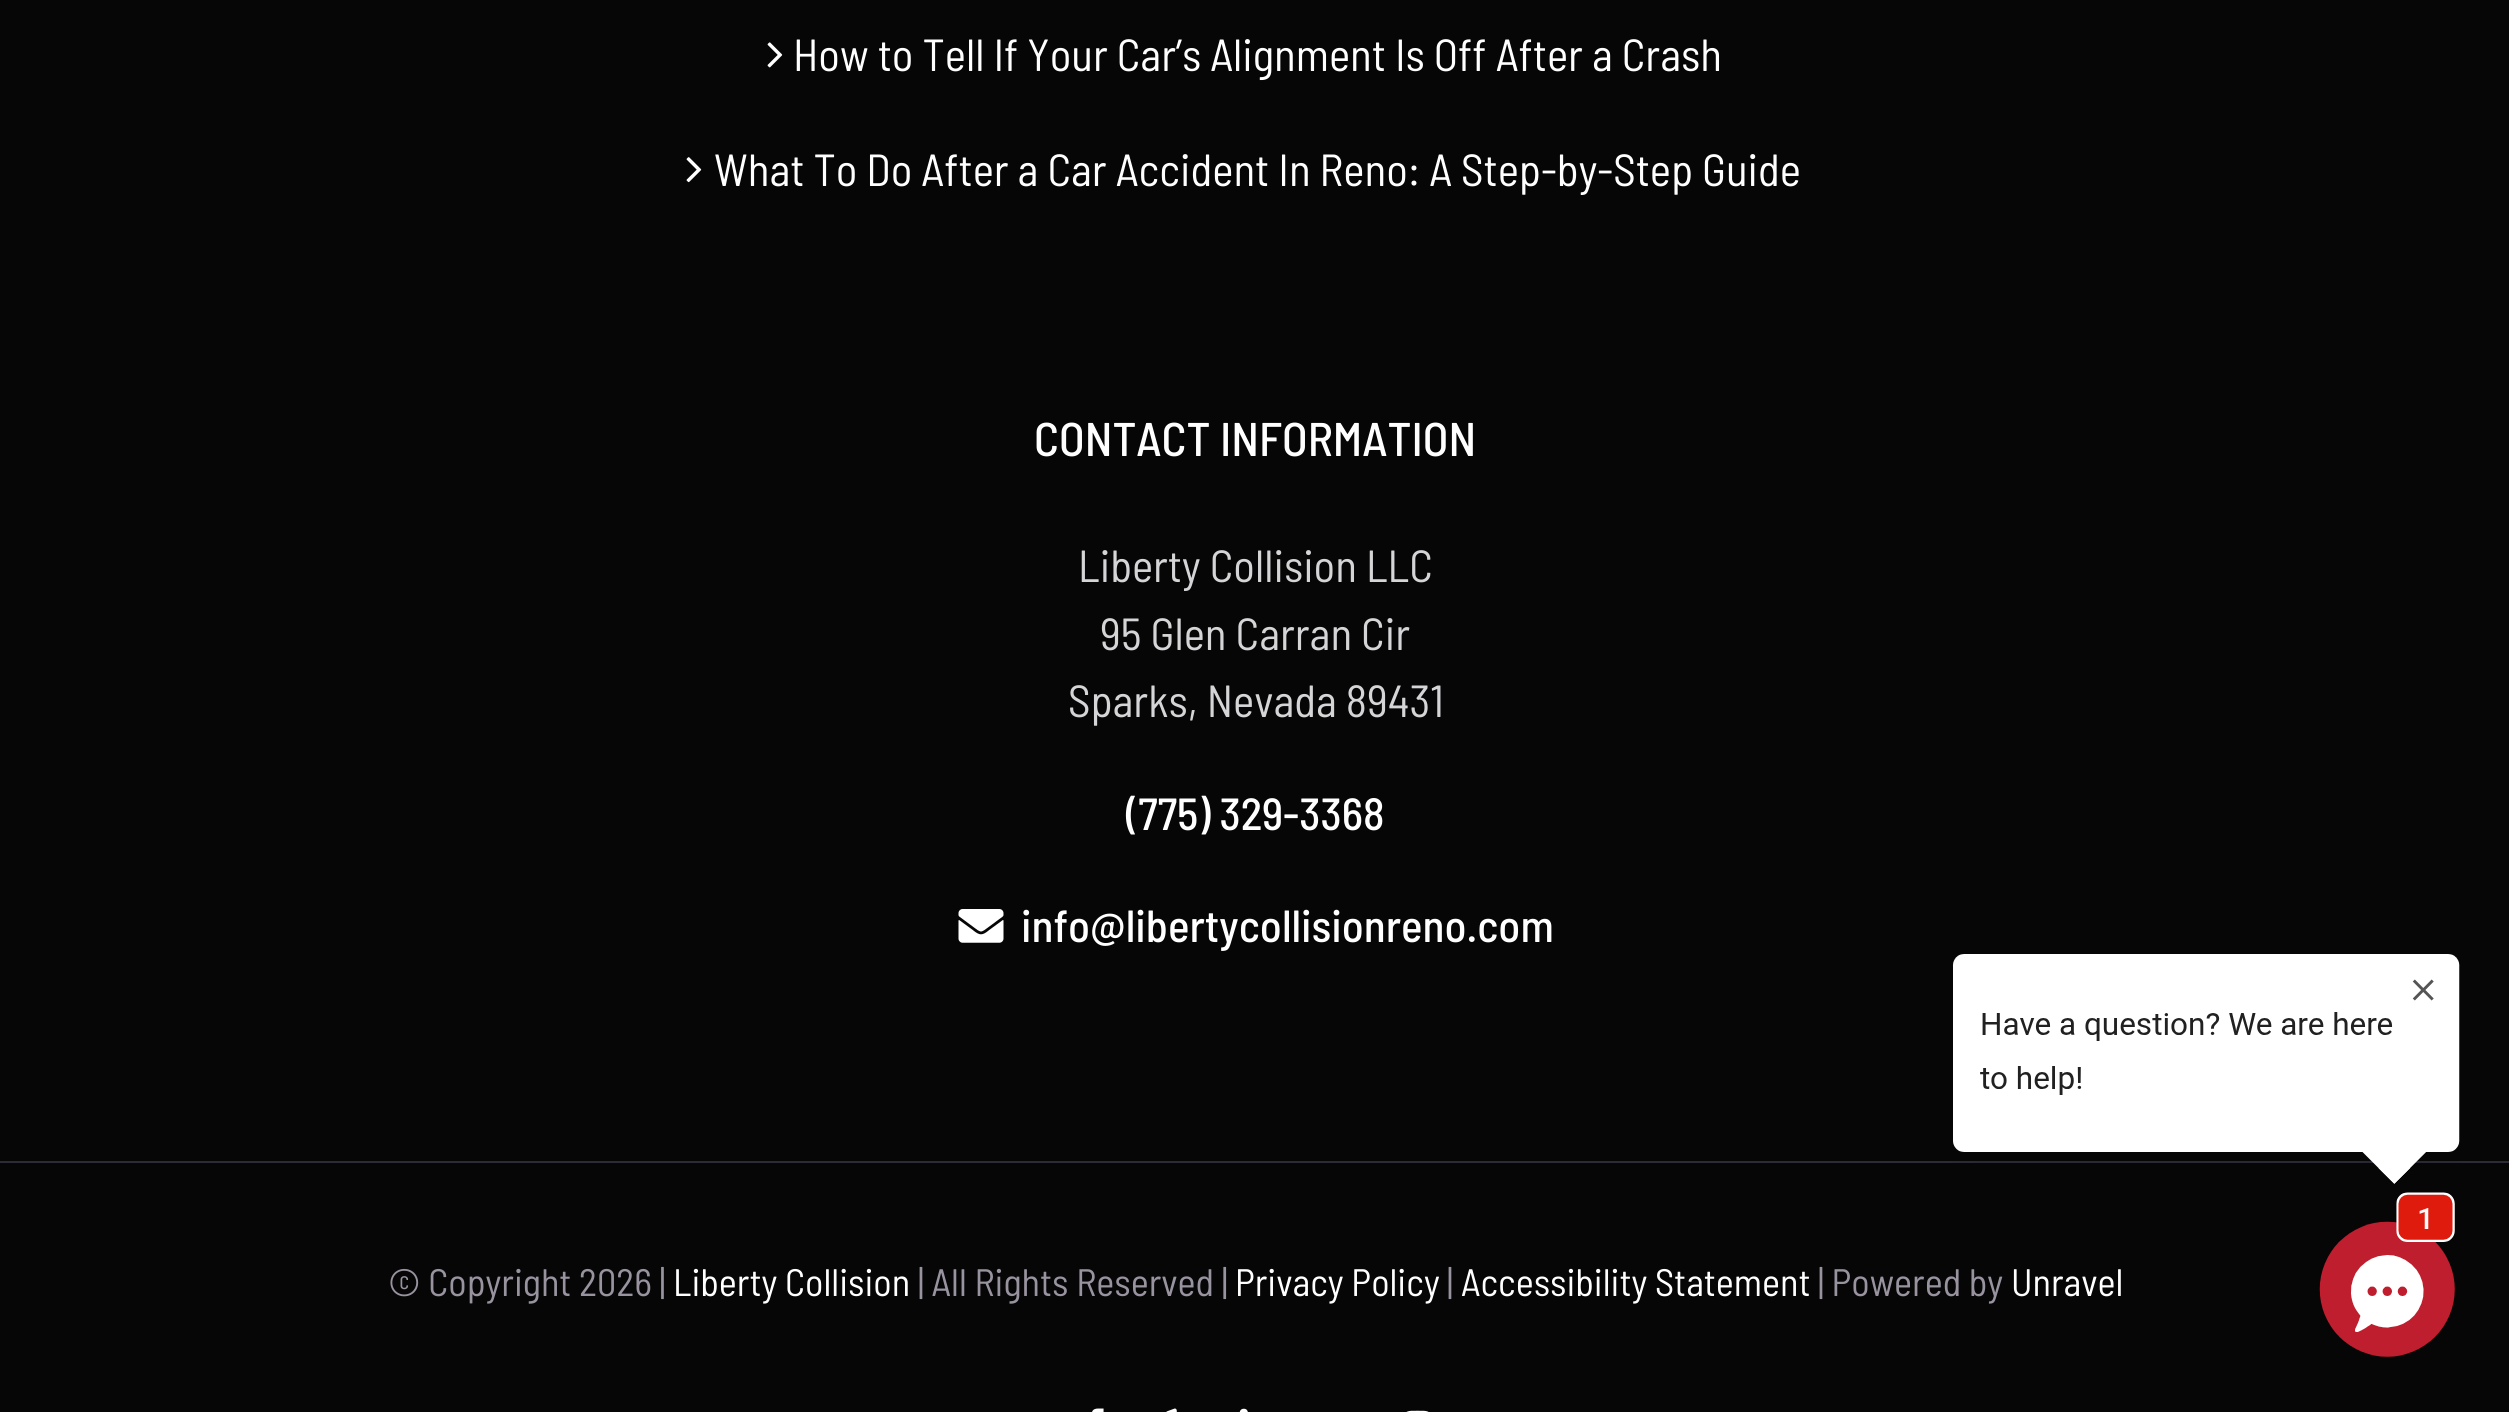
import math
import cairo

surface = cairo.ImageSurface(cairo.FORMAT_RGB24, 2509, 1412)
ctx = cairo.Context(surface)
options = cairo.FontOptions()
options.set_hint_metrics(cairo.HINT_METRICS_OFF)
options.set_hint_style(cairo.HINT_STYLE_NONE)
ctx.set_font_options(options)
ctx.set_miter_limit(4)


def set_color(code):
    ctx.set_source_rgb(*(v / 255 for v in bytes.fromhex(code[-6:])))


def draw_text(x, y, s, family, size, color, bold=False, italic=False):
    ctx.select_font_face(family, cairo.FONT_SLANT_ITALIC if italic else cairo.FONT_SLANT_NORMAL, cairo.FONT_WEIGHT_BOLD if bold else cairo.FONT_WEIGHT_NORMAL)
    ctx.set_font_size(size)
    set_color(color)
    ctx.move_to(x, y)
    ctx.show_text(s)


def fill_rect(x, y, w, h, color):
    set_color(color)
    ctx.rectangle(x, y, w, h)
    ctx.fill()


def draw_image(path, x, y, w, h):
    ctx.save()
    ctx.set_source_surface(cairo.ImageSurface.create_from_png(path), x, y)
    ctx.rectangle(x, y, w, h)
    ctx.fill()
    ctx.restore()


set_color("#060607")
ctx.paint()
draw_image("assets/img1.png", 767, 42, 16, 26)
draw_text(793, 71, "How to Tell If Your Car’s Alignment Is Off After a Crash", "Barlow Semi Condensed", 45, "#ffffff")
draw_image("assets/img2.png", 686, 157, 16, 26)
draw_text(714, 186, "What To Do After a Car Accident In Reno: A Step-by-Step Guide", "Barlow Semi Condensed", 45, "#ffffff")
draw_text(1034, 456, "CONTACT INFORMATION", "Barlow Semi Condensed Medium", 47.25, "#ffffff")
draw_text(1078, 582, "Liberty Collision LLC", "Barlow Semi Condensed", 45, "#d5d4d7")
draw_text(1100, 650, "95 Glen Carran Cir", "Barlow Semi Condensed", 45, "#d5d4d7")
draw_text(1068, 717, "Sparks, Nevada 89431", "Barlow Semi Condensed", 45, "#d5d4d7")
draw_text(1126, 830, "(775) 329-3368", "Barlow Semi Condensed Medium", 45, "#ffffff")
draw_image("assets/img3.png", 958, 909, 46, 34)
draw_text(1021, 942, "info@libertycollisionreno.com", "Barlow Semi Condensed Medium", 45, "#ffffff")
fill_rect(0, 1161, 2509, 2, "#2c2a35")
draw_text(388, 1296, "© Copyright 2026 |", "Barlow Semi Condensed", 38.25, "#98939f")
draw_text(673, 1296, "Liberty Collision", "Barlow Semi Condensed", 38.25, "#ffffff")
draw_text(918, 1296, "| All Rights Reserved |", "Barlow Semi Condensed", 38.25, "#98939f")
draw_text(1235, 1296, "Privacy Policy", "Barlow Semi Condensed", 38.25, "#ffffff")
draw_text(1447, 1296, "|", "Barlow Semi Condensed", 38.25, "#98939f")
draw_text(1461, 1296, "Accessibility Statement", "Barlow Semi Condensed", 38.25, "#ffffff")
draw_text(1818, 1296, "| Powered by", "Barlow Semi Condensed", 38.25, "#98939f")
draw_text(2011, 1296, "Unravel", "Barlow Semi Condensed", 38.25, "#ffffff")
draw_image("assets/img4.png", 1092, 1408, 12, 4)
draw_image("assets/img5.png", 1166, 1408, 11, 4)
draw_image("assets/img6.png", 1239, 1408, 9, 4)
draw_image("assets/img7.png", 1406, 1410, 23, 2)
draw_image("assets/img8.png", 1952, 954, 508, 403)
surface.write_to_png("output.png")
